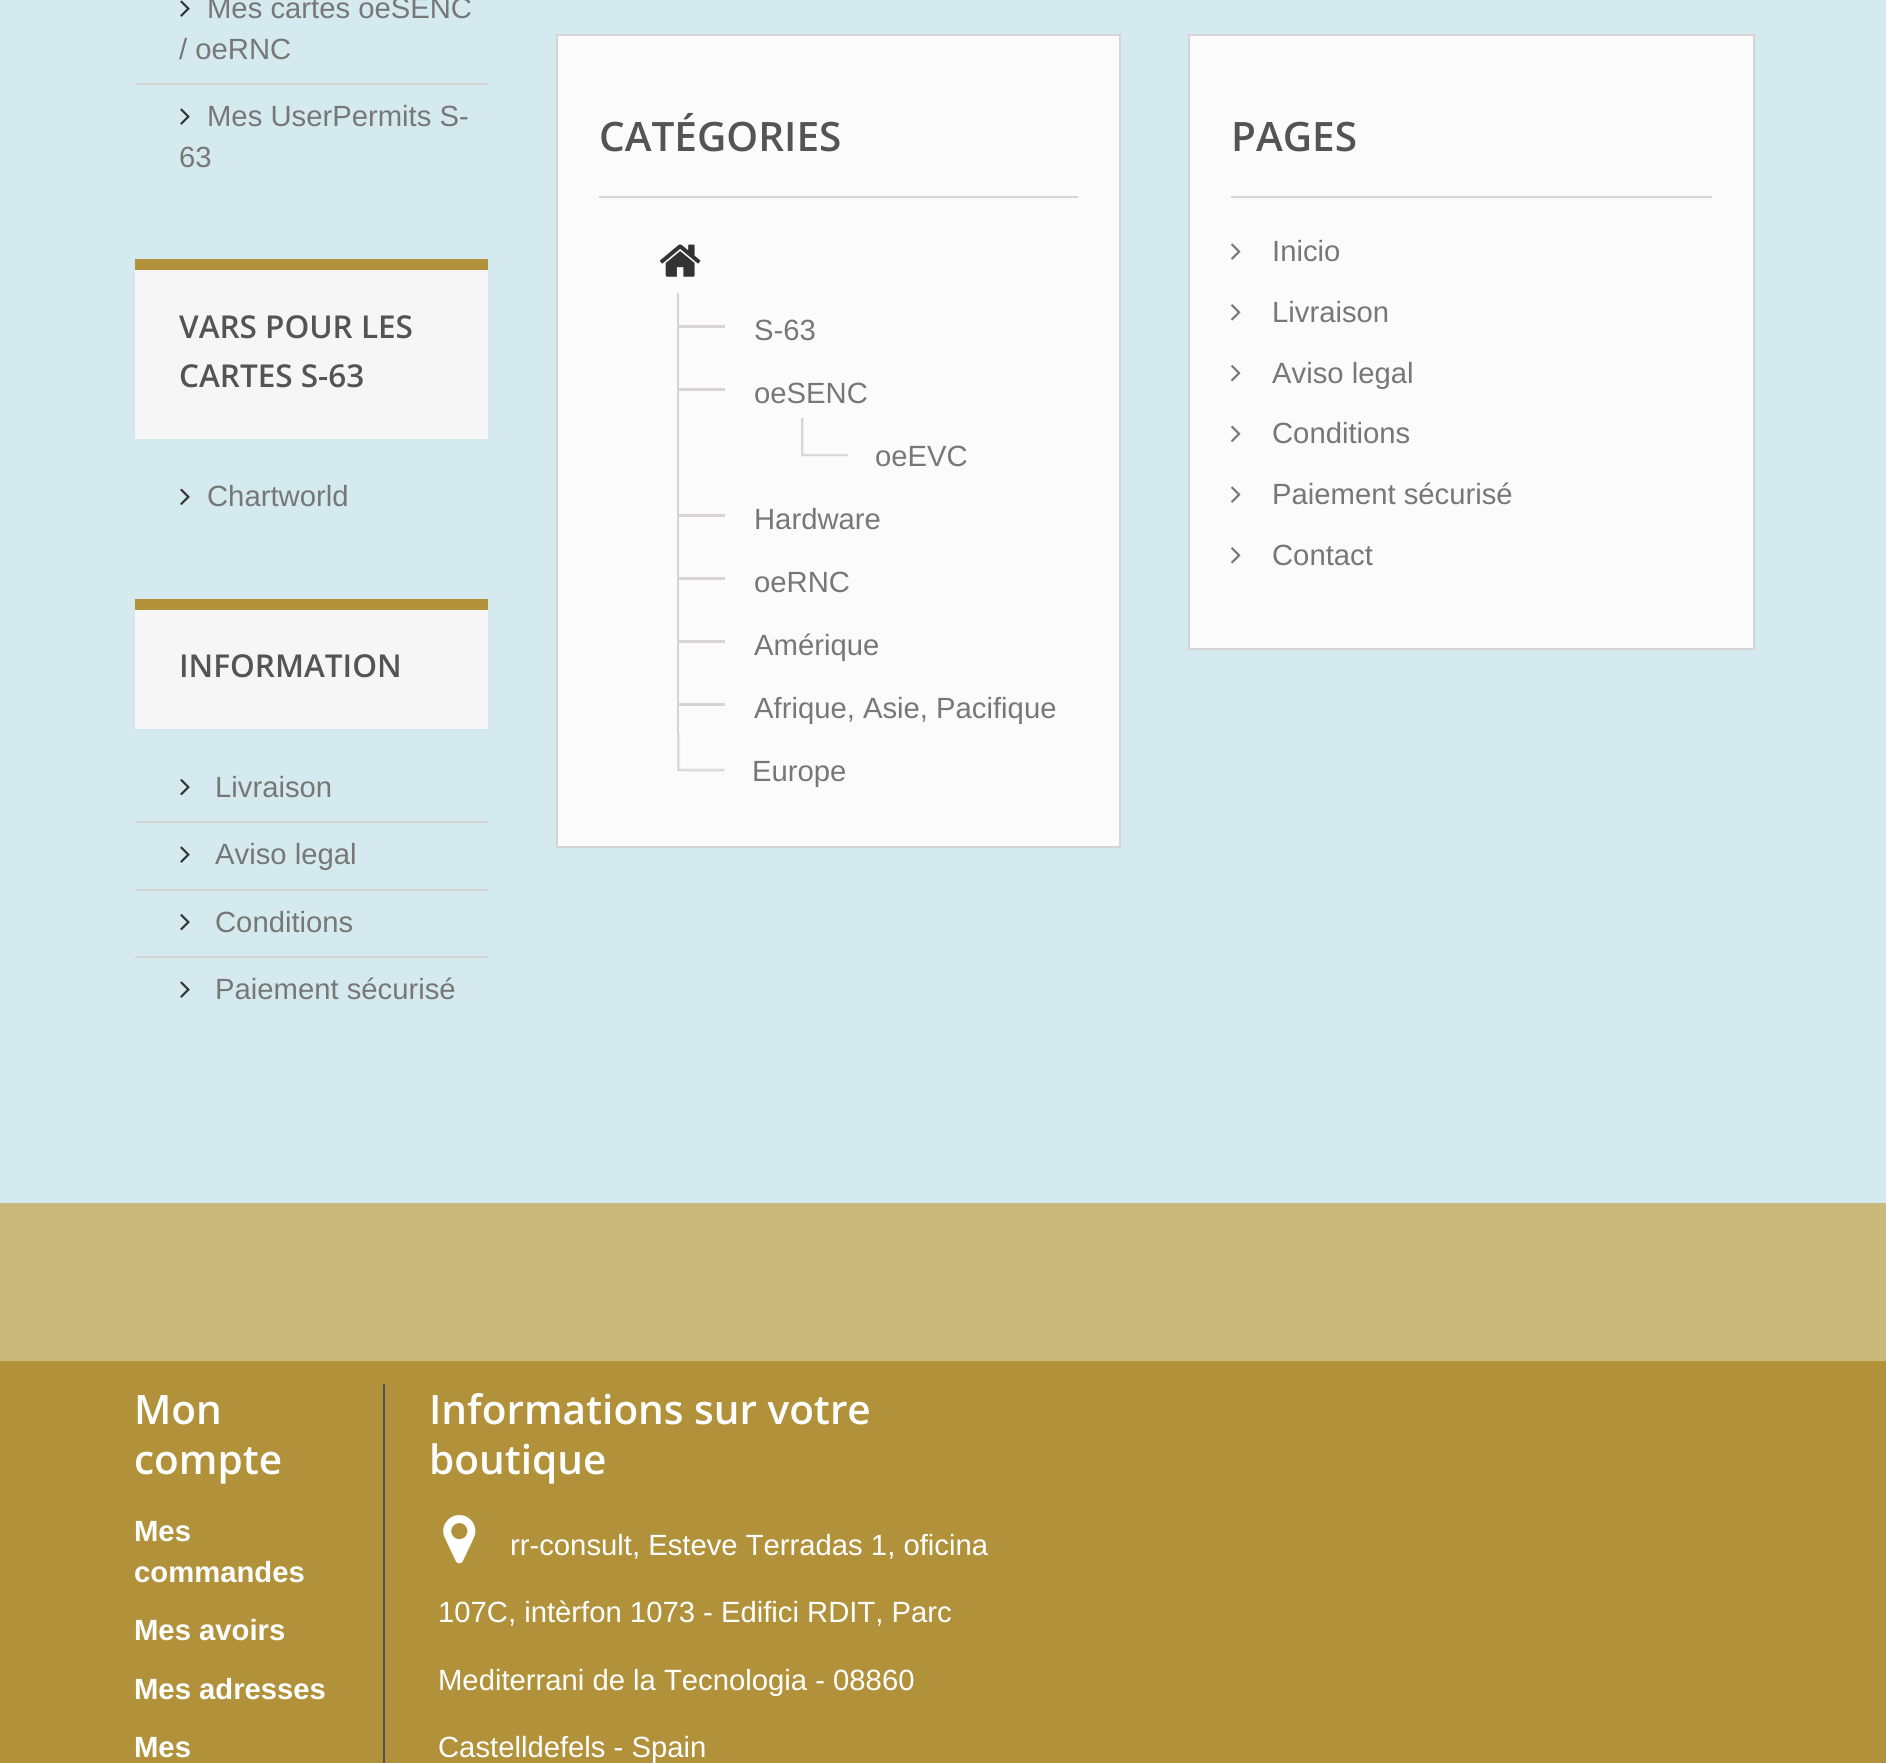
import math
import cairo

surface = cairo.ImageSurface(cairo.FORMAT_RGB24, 1886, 1763)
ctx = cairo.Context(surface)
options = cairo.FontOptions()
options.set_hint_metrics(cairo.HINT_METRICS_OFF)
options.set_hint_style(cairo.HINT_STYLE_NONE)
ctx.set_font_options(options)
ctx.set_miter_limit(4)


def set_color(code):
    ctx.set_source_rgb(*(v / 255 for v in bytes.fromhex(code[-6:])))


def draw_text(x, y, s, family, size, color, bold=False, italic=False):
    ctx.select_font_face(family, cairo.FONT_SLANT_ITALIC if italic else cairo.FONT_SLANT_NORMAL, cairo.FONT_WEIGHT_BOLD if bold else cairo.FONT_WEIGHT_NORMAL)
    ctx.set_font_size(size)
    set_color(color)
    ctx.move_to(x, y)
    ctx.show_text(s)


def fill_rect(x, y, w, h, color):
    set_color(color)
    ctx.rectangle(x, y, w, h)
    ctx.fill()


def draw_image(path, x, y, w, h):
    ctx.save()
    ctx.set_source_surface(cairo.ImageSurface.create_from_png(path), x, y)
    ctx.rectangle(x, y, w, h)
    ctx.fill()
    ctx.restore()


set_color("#d4eaee")
ctx.paint()
draw_image("assets/img1.png", 180, 0, 10, 17)
draw_text(207, 18, "Mes cartes oeSENC", "Liberation Sans", 29.25, "#777777")
draw_text(179, 59, "/ oeRNC", "Liberation Sans", 29.25, "#777777")
fill_rect(135, 83, 353, 2, "#d6d4d4")
draw_image("assets/img1.png", 180, 108, 10, 17)
draw_text(207, 126, "Mes UserPermits S-", "Liberation Sans", 29.25, "#777777")
draw_text(179, 167, "63", "Liberation Sans", 29.25, "#777777")
fill_rect(135, 270, 353, 169, "#f6f6f6")
fill_rect(135, 259, 353, 11, "#b19139")
draw_text(179, 338, "VARS POUR LES", "Open Sans SemiBold", 31.5, "#555454")
draw_text(179, 387, "CARTES S-63", "Open Sans SemiBold", 31.5, "#555454")
draw_image("assets/img2.png", 180, 488, 10, 17)
draw_text(207, 506, "Chartworld", "Liberation Sans", 29.25, "#777777")
fill_rect(135, 610, 353, 119, "#f6f6f6")
fill_rect(135, 599, 353, 11, "#b19139")
draw_text(179, 677, "INFORMATION", "Open Sans SemiBold", 31.5, "#555454")
draw_image("assets/img3.png", 180, 779, 10, 17)
draw_text(215, 797, "Livraison", "Liberation Sans", 29.25, "#777777")
fill_rect(135, 821, 353, 2, "#d6d4d4")
draw_image("assets/img1.png", 180, 846, 10, 17)
draw_text(215, 864, "Aviso legal", "Liberation Sans", 29.25, "#777777")
fill_rect(135, 889, 353, 2, "#d6d4d4")
draw_image("assets/img3.png", 180, 914, 10, 17)
draw_text(215, 932, "Conditions", "Liberation Sans", 29.25, "#777777")
fill_rect(135, 956, 353, 2, "#d6d4d4")
draw_image("assets/img1.png", 180, 981, 10, 17)
draw_text(215, 999, "Paiement sécurisé", "Liberation Sans", 29.25, "#777777")
set_color("#fbfbfb")
ctx.rectangle(557, 35, 563, 812)
ctx.fill_preserve()
set_color("#d6d4d4")
ctx.stroke()
fill_rect(599, 196, 479, 2, "#d6d4d4")
draw_text(599, 151, "CATÉGORIES", "Open Sans SemiBold", 40.5, "#555454")
draw_image("assets/img4.png", 659, 244, 42, 33)
fill_rect(679, 325, 46, 3, "#d6d4d4")
fill_rect(677, 293, 2, 441, "#d6d4d4")
draw_text(754, 340, "S-63", "Liberation Sans", 29.25, "#777777")
fill_rect(679, 388, 46, 3, "#d6d4d4")
draw_text(754, 403, "oeSENC", "Liberation Sans", 29.25, "#777777")
draw_image("assets/img5.png", 801, 418, 48, 39)
draw_text(875, 466, "oeEVC", "Liberation Sans", 29.25, "#777777")
fill_rect(679, 514, 46, 3, "#d6d4d4")
draw_text(754, 529, "Hardware", "Liberation Sans", 29.25, "#777777")
fill_rect(679, 577, 46, 3, "#d6d4d4")
draw_text(754, 592, "oeRNC", "Liberation Sans", 29.25, "#777777")
fill_rect(679, 640, 46, 3, "#d6d4d4")
draw_text(754, 655, "Amérique", "Liberation Sans", 29.25, "#777777")
fill_rect(679, 703, 46, 3, "#d6d4d4")
draw_text(754, 718, "Afrique, Asie, Pacifique", "Liberation Sans", 29.25, "#777777")
draw_image("assets/img6.png", 677, 733, 48, 39)
draw_text(752, 781, "Europe", "Liberation Sans", 29.25, "#777777")
set_color("#fbfbfb")
ctx.rectangle(1189, 35, 565, 614)
ctx.fill_preserve()
set_color("#d6d4d4")
ctx.stroke()
fill_rect(1231, 196, 481, 2, "#d6d4d4")
draw_text(1231, 151, "PAGES", "Open Sans SemiBold", 40.5, "#555454")
draw_image("assets/img7.png", 1231, 243, 10, 17)
draw_text(1272, 261, "Inicio", "Liberation Sans", 29.25, "#777777")
draw_image("assets/img8.png", 1231, 304, 10, 17)
draw_text(1272, 322, "Livraison", "Liberation Sans", 29.25, "#777777")
draw_image("assets/img9.png", 1231, 365, 10, 17)
draw_text(1272, 383, "Aviso legal", "Liberation Sans", 29.25, "#777777")
draw_image("assets/img10.png", 1231, 425, 10, 17)
draw_text(1272, 443, "Conditions", "Liberation Sans", 29.25, "#777777")
draw_image("assets/img7.png", 1231, 486, 10, 17)
draw_text(1272, 504, "Paiement sécurisé", "Liberation Sans", 29.25, "#777777")
draw_image("assets/img8.png", 1231, 547, 10, 17)
draw_text(1272, 565, "Contact", "Liberation Sans", 29.25, "#777777")
fill_rect(0, 1361, 1886, 402, "#b19139")
fill_rect(0, 1203, 1886, 158, "#c9b97a")
draw_text(134, 1424, "Mon", "Open Sans SemiBold", 40.5, "#ffffff")
draw_text(134, 1474, "compte", "Open Sans SemiBold", 40.5, "#ffffff")
draw_text(134, 1541, "Mes", "Liberation Sans", 29.25, "#ffffff", bold=True)
draw_text(134, 1582, "commandes", "Liberation Sans", 29.25, "#ffffff", bold=True)
draw_text(134, 1640, "Mes avoirs", "Liberation Sans", 29.25, "#ffffff", bold=True)
draw_text(134, 1699, "Mes adresses", "Liberation Sans", 29.25, "#ffffff", bold=True)
draw_text(134, 1757, "Mes", "Liberation Sans", 29.25, "#ffffff", bold=True)
fill_rect(383, 1384, 2, 379, "#515151")
draw_text(429, 1424, "Informations sur votre", "Open Sans SemiBold", 40.5, "#ffffff")
draw_text(429, 1474, "boutique", "Open Sans SemiBold", 40.5, "#ffffff")
draw_image("assets/img11.png", 443, 1515, 33, 49)
draw_text(510, 1555, "rr-consult, Esteve Terradas 1, oficina", "Liberation Sans", 29.25, "#ffffff")
draw_text(438, 1622, "107C, intèrfon 1073 - Edifici RDIT, Parc", "Liberation Sans", 29.25, "#ffffff")
draw_text(438, 1690, "Mediterrani de la Tecnologia - 08860", "Liberation Sans", 29.25, "#ffffff")
draw_text(438, 1757, "Castelldefels - Spain", "Liberation Sans", 29.25, "#ffffff")
surface.write_to_png("output.png")
